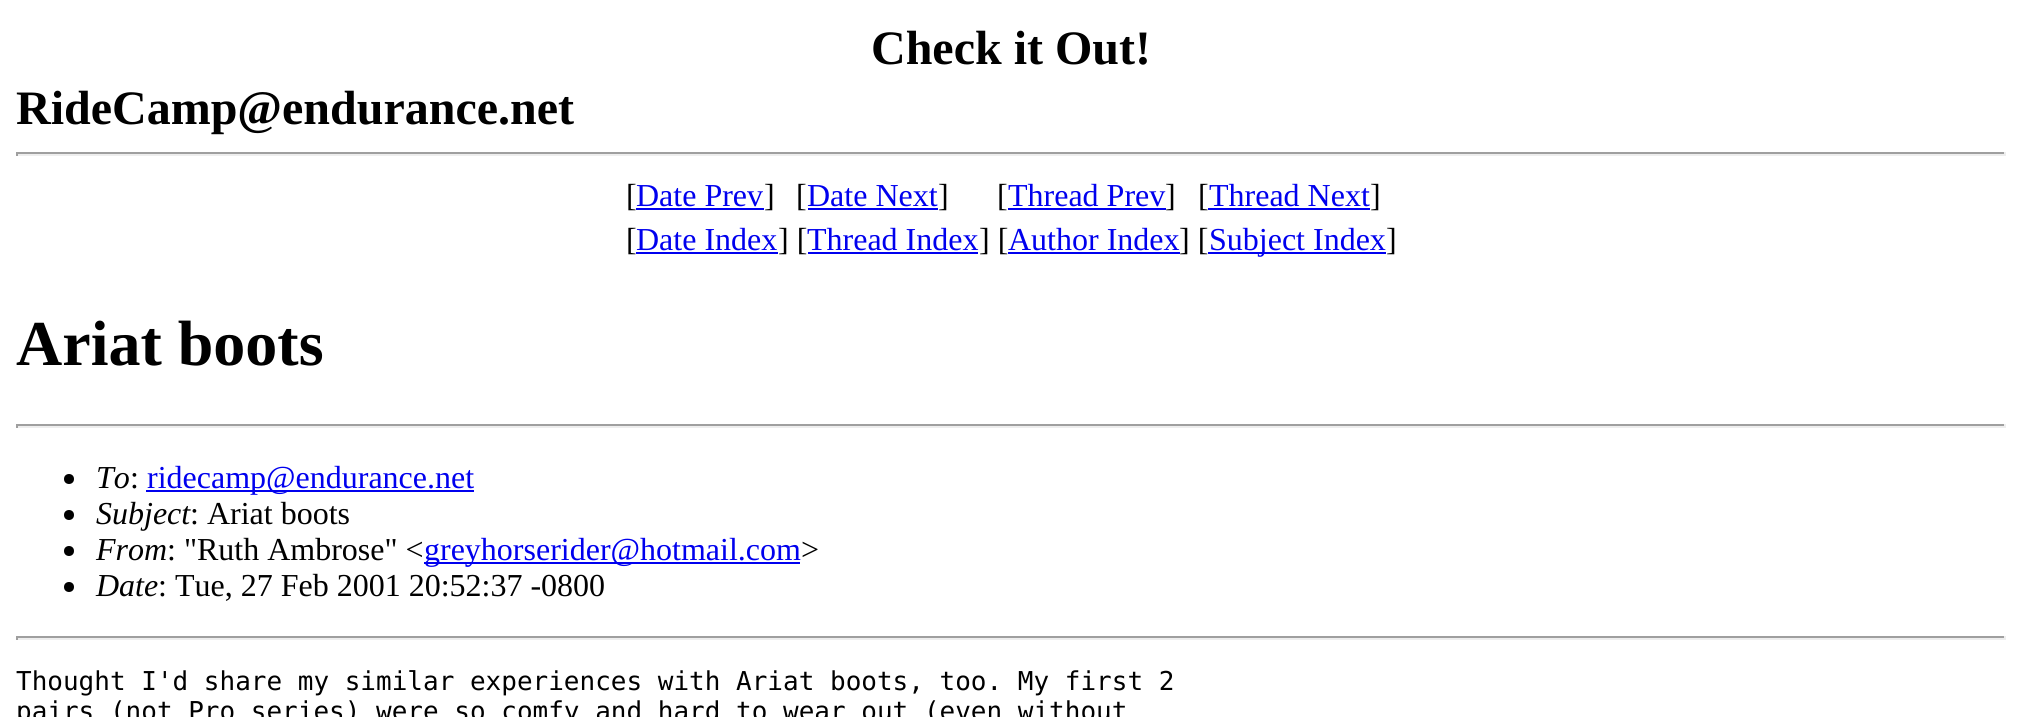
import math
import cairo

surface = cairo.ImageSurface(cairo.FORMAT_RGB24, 2022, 717)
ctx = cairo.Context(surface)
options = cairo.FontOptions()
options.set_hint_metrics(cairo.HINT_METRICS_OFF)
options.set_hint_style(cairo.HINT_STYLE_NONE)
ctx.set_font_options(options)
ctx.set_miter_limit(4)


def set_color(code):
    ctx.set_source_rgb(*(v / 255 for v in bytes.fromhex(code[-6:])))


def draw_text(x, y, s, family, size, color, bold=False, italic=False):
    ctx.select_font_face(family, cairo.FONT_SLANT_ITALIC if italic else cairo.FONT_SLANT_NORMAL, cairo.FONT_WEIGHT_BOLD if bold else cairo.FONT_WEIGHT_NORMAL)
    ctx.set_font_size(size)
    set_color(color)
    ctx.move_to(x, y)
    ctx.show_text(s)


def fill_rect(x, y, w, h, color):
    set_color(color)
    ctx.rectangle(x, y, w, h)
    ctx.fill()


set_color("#ffffff")
ctx.paint()
draw_text(871, 64, "Check it Out!", "Liberation Serif", 48, "#000000", bold=True)
draw_text(16, 124, "RideCamp@endurance.net", "Liberation Serif", 48, "#000000", bold=True)
fill_rect(16, 152, 1990, 2, "#9f9f9f")
fill_rect(2004, 152, 2, 4, "#eeeeee")
fill_rect(16, 154, 1990, 2, "#eeeeee")
fill_rect(16, 152, 2, 4, "#9f9f9f")
draw_text(626, 206, "[", "Liberation Serif", 32, "#000000")
draw_text(636, 206, "Date Prev", "Liberation Serif", 32, "#0000ee")
fill_rect(636, 208, 128, 2, "#0000ee")
draw_text(764, 206, "]", "Liberation Serif", 32, "#000000")
draw_text(796, 206, "[", "Liberation Serif", 32, "#000000")
draw_text(807, 206, "Date Next", "Liberation Serif", 32, "#0000ee")
fill_rect(808, 208, 130, 2, "#0000ee")
draw_text(938, 206, "]", "Liberation Serif", 32, "#000000")
draw_text(997, 206, "[", "Liberation Serif", 32, "#000000")
draw_text(1008, 206, "Thread Prev", "Liberation Serif", 32, "#0000ee")
fill_rect(1008, 208, 158, 2, "#0000ee")
draw_text(1165, 206, "]", "Liberation Serif", 32, "#000000")
draw_text(1198, 206, "[", "Liberation Serif", 32, "#000000")
draw_text(1209, 206, "Thread Next", "Liberation Serif", 32, "#0000ee")
fill_rect(1208, 208, 162, 2, "#0000ee")
draw_text(1370, 206, "]", "Liberation Serif", 32, "#000000")
draw_text(626, 250, "[", "Liberation Serif", 32, "#000000")
draw_text(636, 250, "Date Index", "Liberation Serif", 32, "#0000ee")
fill_rect(636, 252, 142, 2, "#0000ee")
draw_text(778, 250, "] [", "Liberation Serif", 32, "#000000")
draw_text(807, 250, "Thread Index", "Liberation Serif", 32, "#0000ee")
fill_rect(808, 252, 170, 2, "#0000ee")
draw_text(979, 250, "] [", "Liberation Serif", 32, "#000000")
draw_text(1008, 250, "Author Index", "Liberation Serif", 32, "#0000ee")
fill_rect(1008, 252, 172, 2, "#0000ee")
draw_text(1179, 250, "] [", "Liberation Serif", 32, "#000000")
fill_rect(1208, 252, 178, 2, "#0000ee")
draw_text(1209, 250, "Subject Index", "Liberation Serif", 32, "#0000ee")
draw_text(1386, 250, "]", "Liberation Serif", 32, "#000000")
draw_text(16, 365, "Ariat boots", "Liberation Serif", 64, "#000000", bold=True)
fill_rect(16, 424, 1990, 2, "#9f9f9f")
fill_rect(2004, 424, 2, 4, "#eeeeee")
fill_rect(16, 426, 1990, 2, "#eeeeee")
fill_rect(16, 424, 2, 4, "#9f9f9f")
set_color("#000000")
ctx.new_path()
ctx.arc(69, 479, 5, 0, 2 * math.pi)
ctx.fill()
draw_text(96, 488, "To", "Liberation Serif", 32, "#000000", italic=True)
draw_text(130, 488, ":", "Liberation Serif", 32, "#000000")
fill_rect(146, 490, 328, 2, "#0000ee")
draw_text(147, 488, "ridecamp@endurance.net", "Liberation Serif", 32, "#0000ee")
set_color("#000000")
ctx.new_path()
ctx.arc(69, 515, 5, 0, 2 * math.pi)
ctx.fill()
draw_text(96, 524, "Subject", "Liberation Serif", 32, "#000000", italic=True)
draw_text(190, 524, ": Ariat boots", "Liberation Serif", 32, "#000000")
ctx.new_path()
ctx.arc(69, 551, 5, 0, 2 * math.pi)
ctx.fill()
draw_text(96, 560, "From", "Liberation Serif", 32, "#000000", italic=True)
draw_text(167, 560, ": \"Ruth Ambrose\" <", "Liberation Serif", 32, "#000000")
fill_rect(424, 562, 376, 2, "#0000ee")
draw_text(424, 560, "greyhorserider@hotmail.com", "Liberation Serif", 32, "#0000ee")
draw_text(801, 560, ">", "Liberation Serif", 32, "#000000")
ctx.new_path()
ctx.arc(69, 587, 5, 0, 2 * math.pi)
ctx.fill()
draw_text(96, 596, "Date", "Liberation Serif", 32, "#000000", italic=True)
draw_text(158, 596, ": Tue, 27 Feb 2001 20:52:37 -0800", "Liberation Serif", 32, "#000000")
fill_rect(16, 636, 1990, 2, "#9f9f9f")
fill_rect(2004, 636, 2, 4, "#eeeeee")
fill_rect(16, 638, 1990, 2, "#eeeeee")
fill_rect(16, 636, 2, 4, "#9f9f9f")
draw_text(16, 690, "Thought I'd share my similar experiences with Ariat boots, too. My first 2", "DejaVu Sans Mono", 26, "#000000")
draw_text(16, 720, "pairs (not Pro series) were so comfy and hard to wear out (even without", "DejaVu Sans Mono", 26, "#000000")
surface.write_to_png("output.png")
